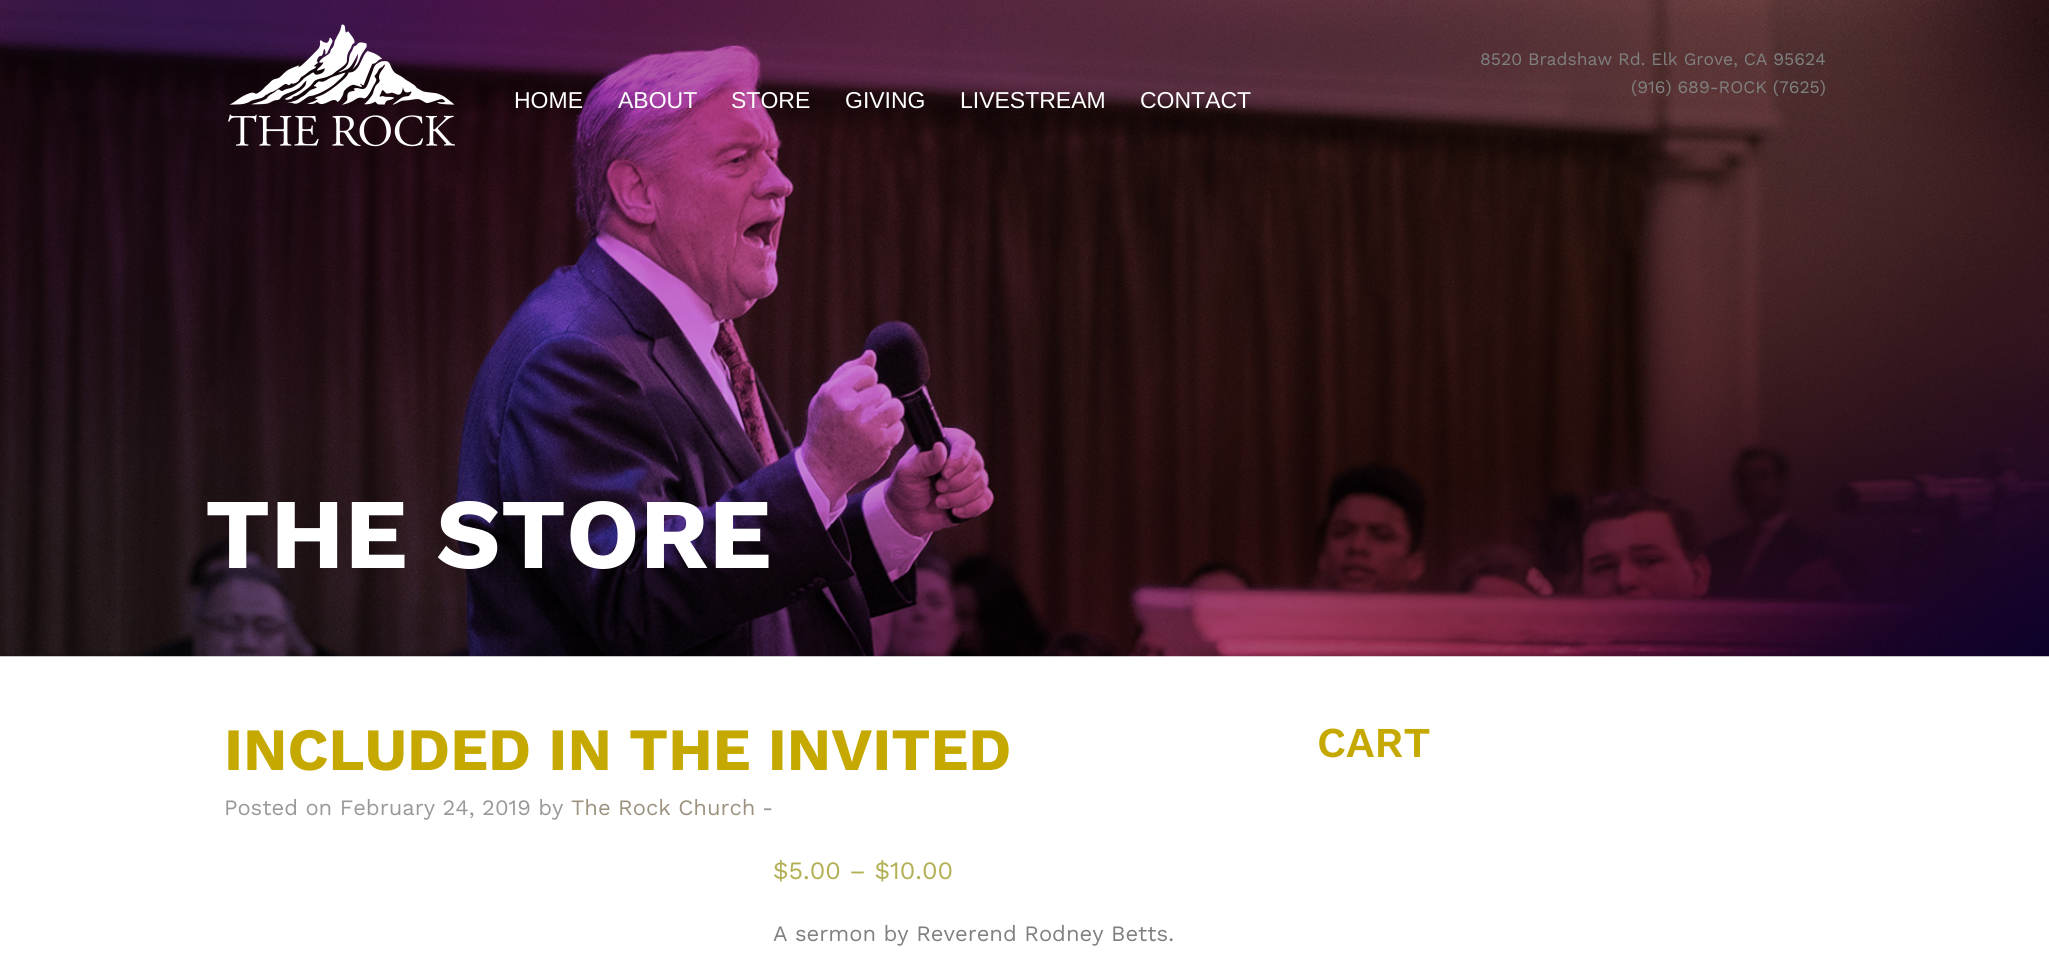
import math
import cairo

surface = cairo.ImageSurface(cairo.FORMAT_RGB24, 2049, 960)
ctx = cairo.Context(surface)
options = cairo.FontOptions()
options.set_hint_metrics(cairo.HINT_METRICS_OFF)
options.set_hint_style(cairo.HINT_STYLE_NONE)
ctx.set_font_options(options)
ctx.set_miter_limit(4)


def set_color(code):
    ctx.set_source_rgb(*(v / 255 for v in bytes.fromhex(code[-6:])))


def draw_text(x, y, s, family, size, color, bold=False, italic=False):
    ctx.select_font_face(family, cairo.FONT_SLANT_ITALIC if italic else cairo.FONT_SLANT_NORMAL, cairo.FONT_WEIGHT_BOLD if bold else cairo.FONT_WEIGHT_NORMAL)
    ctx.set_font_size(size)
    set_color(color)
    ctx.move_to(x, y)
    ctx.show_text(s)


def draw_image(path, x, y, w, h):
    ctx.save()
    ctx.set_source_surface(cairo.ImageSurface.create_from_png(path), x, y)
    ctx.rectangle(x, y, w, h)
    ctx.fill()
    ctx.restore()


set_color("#ffffff")
ctx.paint()
draw_image("assets/img2.png", 0, 0, 2049, 657)
draw_image("assets/img1.png", 228, 24, 227, 123)
draw_text(1480, 65, "8520 Bradshaw Rd. Elk Grove, CA 95624", "Work Sans", 17.5, "#808080")
draw_text(1631, 93, "(916) 689-ROCK (7625)", "Work Sans", 17.5, "#808080")
draw_text(514, 108, "HOME", "Liberation Sans", 23, "#ffffff")
draw_text(618, 108, "ABOUT", "Liberation Sans", 23, "#ffffff")
draw_text(731, 108, "STORE", "Liberation Sans", 23, "#ffffff")
draw_text(845, 108, "GIVING", "Liberation Sans", 23, "#ffffff")
draw_text(960, 108, "LIVESTREAM", "Liberation Sans", 23, "#ffffff")
draw_text(1140, 108, "CONTACT", "Liberation Sans", 23, "#ffffff")
draw_text(205, 568, "THE STORE", "Work Sans", 100, "#ffffff", bold=True)
draw_text(224, 770, "INCLUDED IN THE INVITED", "Work Sans", 60, "#c5a900", bold=True)
draw_text(224, 815, "Posted on February 24, 2019 by", "Work Sans", 22, "#999999")
draw_text(571, 815, "The Rock Church", "Work Sans", 22, "#9c927f")
draw_text(762, 815, "-", "Work Sans", 22, "#999999")
draw_text(773, 879, "$5.00 – $10.00", "Work Sans", 25, "#b3af54")
draw_text(773, 941, "A sermon by Reverend Rodney Betts.", "Work Sans", 22, "#808080")
draw_text(1317, 757, "CART", "Work Sans SemiBold", 42.5, "#c5a900")
surface.write_to_png("output.png")
